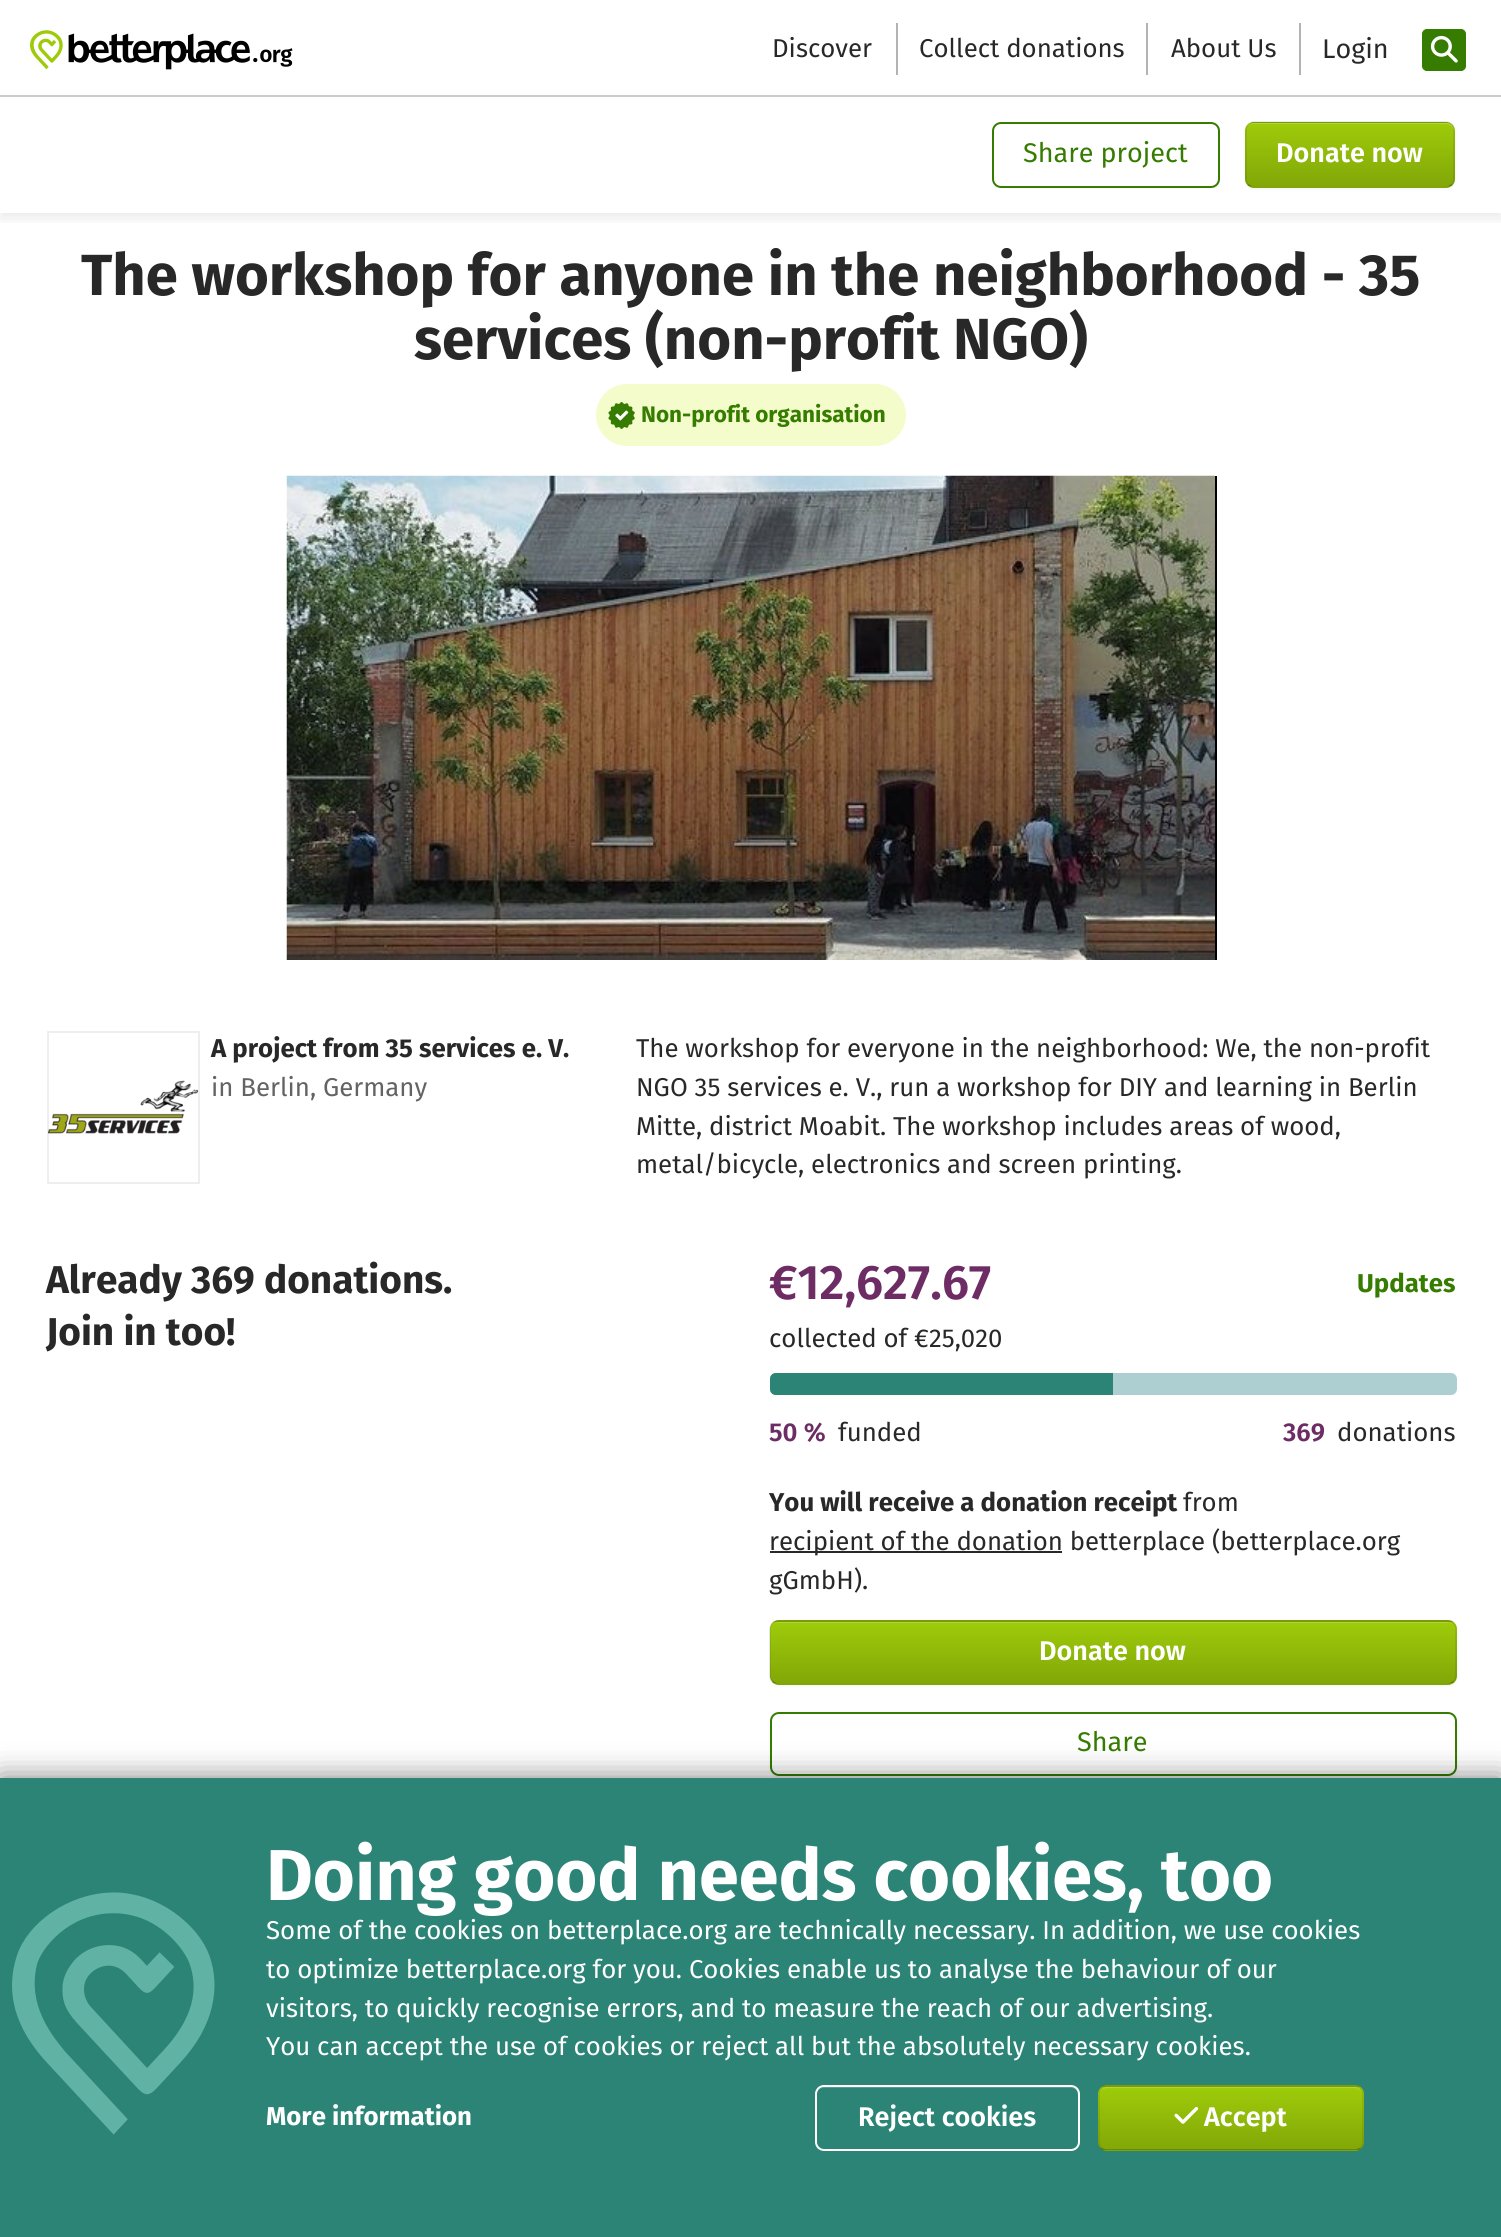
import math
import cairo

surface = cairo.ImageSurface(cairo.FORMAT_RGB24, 1501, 2237)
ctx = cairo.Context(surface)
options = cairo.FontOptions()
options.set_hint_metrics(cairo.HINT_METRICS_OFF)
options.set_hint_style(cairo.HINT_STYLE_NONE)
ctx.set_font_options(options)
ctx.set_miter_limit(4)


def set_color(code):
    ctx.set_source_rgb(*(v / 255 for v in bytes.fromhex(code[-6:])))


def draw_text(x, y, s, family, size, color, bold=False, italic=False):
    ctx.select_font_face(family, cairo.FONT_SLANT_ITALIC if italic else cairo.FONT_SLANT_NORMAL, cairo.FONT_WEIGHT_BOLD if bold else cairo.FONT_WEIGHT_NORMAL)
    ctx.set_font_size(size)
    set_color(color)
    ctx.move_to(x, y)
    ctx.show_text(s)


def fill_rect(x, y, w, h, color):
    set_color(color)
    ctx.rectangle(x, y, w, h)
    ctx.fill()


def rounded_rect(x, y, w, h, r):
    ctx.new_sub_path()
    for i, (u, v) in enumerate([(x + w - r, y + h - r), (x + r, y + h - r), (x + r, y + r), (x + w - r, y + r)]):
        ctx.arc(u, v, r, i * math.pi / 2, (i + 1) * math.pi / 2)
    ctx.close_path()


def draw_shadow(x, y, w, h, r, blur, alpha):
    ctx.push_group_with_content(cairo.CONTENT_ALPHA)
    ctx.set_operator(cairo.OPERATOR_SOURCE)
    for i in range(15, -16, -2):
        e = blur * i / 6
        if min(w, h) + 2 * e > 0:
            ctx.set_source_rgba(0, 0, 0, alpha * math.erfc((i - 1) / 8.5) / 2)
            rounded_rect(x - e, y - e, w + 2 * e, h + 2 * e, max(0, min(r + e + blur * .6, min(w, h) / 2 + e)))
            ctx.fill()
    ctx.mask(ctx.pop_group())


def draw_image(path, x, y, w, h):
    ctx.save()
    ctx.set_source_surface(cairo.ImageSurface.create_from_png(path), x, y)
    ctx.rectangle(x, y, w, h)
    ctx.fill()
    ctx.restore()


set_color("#ffffff")
ctx.paint()
ctx.save()
ctx.rectangle(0, 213, 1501, 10)
ctx.clip()
set_color("#000000")
draw_shadow(0, 102, 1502, 117, 0, 6, 0.08)
ctx.restore()
fill_rect(0, 95, 1501, 2, "#cccccc")
draw_image("assets/img1.png", 30, 30, 263, 40)
draw_text(772, 57, "Discover", "Fira Sans", 25.8, "#282828")
fill_rect(896, 23, 2, 52, "#b3b3b3")
draw_text(919, 57, "Collect donations", "Fira Sans", 25.8, "#282828")
fill_rect(1146, 23, 2, 52, "#b3b3b3")
draw_text(1171, 57, "About Us", "Fira Sans", 25.8, "#282828")
fill_rect(1299, 23, 2, 52, "#b3b3b3")
draw_text(1322, 58, "Login", "Fira Sans", 27, "#282828")
set_color("#357c00")
rounded_rect(1422.5, 29.5, 43, 41, 4.5)
ctx.fill_preserve()
ctx.set_line_width(1)
ctx.stroke()
draw_image("assets/img2.png", 1430, 35, 28, 28)
rounded_rect(993, 123, 226, 64, 8)
ctx.set_line_width(2)
ctx.stroke()
draw_text(1023, 162, "Share project", "Fira Sans", 27, "#357c00")
set_color("#000000")
draw_shadow(1245, 123, 210, 66, 9, 1.5, 0.05)
ctx.save()
rounded_rect(1245, 122, 210, 66, 9)
ctx.clip()
gradient = cairo.LinearGradient(1350, 60, 1350, 123)
gradient.add_color_stop_rgba(0, 0.62, 0.796, 0.039, 1)
gradient.add_color_stop_rgba(1, 0.51, 0.655, 0.031, 1)
ctx.set_source(gradient)
ctx.rectangle(1245, 122, 210, 1)
ctx.fill()
gradient = cairo.LinearGradient(1350, 123, 1350, 186)
gradient.add_color_stop_rgba(0, 0.62, 0.796, 0.039, 1)
gradient.add_color_stop_rgba(1, 0.51, 0.655, 0.031, 1)
ctx.set_source(gradient)
ctx.rectangle(1245, 123, 210, 63)
ctx.fill()
gradient = cairo.LinearGradient(1350, 186, 1350, 249)
gradient.add_color_stop_rgba(0, 0.62, 0.796, 0.039, 1)
gradient.add_color_stop_rgba(1, 0.51, 0.655, 0.031, 1)
ctx.set_source(gradient)
ctx.rectangle(1245, 186, 210, 2)
ctx.fill()
ctx.restore()
ctx.set_source_rgba(1, 1, 1, 0.2)
ctx.new_path()
ctx.move_to(1254, 124)
ctx.line_to(1446, 124)
ctx.curve_to(1450, 124, 1454, 128, 1454, 132)
ctx.line_to(1454, 131)
ctx.curve_to(1454, 127, 1450, 123, 1446, 123)
ctx.line_to(1255, 123)
ctx.curve_to(1252, 123, 1250, 125, 1248, 127)
ctx.curve_to(1250, 125, 1252, 124, 1254, 124)
ctx.close_path()
ctx.fill()
ctx.new_path()
ctx.move_to(1452, 184.5)
ctx.curve_to(1450.5, 186, 1448, 187, 1446, 187)
ctx.line_to(1254, 187)
ctx.curve_to(1252, 187, 1249.5, 186, 1248, 184.5)
ctx.set_source_rgba(0, 0, 0, 0.25)
ctx.set_line_width(1.5)
ctx.stroke()
ctx.new_path()
ctx.move_to(1248, 184.5)
ctx.curve_to(1246.5, 183, 1246, 180.5, 1246, 178.5)
ctx.line_to(1246, 130.5)
ctx.curve_to(1246, 128.5, 1246.5, 126, 1248, 124.5)
ctx.curve_to(1249.5, 123, 1252, 122, 1254, 122)
ctx.line_to(1446, 122)
ctx.curve_to(1448, 122, 1450.5, 123, 1452, 124.5)
ctx.curve_to(1453.5, 126, 1454, 128.5, 1454, 130.5)
ctx.line_to(1454, 178.5)
ctx.curve_to(1454, 180.5, 1453.5, 183, 1452, 184.5)
ctx.set_source_rgba(0, 0, 0, 0.1)
ctx.stroke()
draw_text(1276, 162, "Donate now", "Fira Sans SemiBold", 27, "#ffffff")
draw_text(81, 295, "The workshop for anyone in the neighborhood - 35", "Fira Sans", 58, "#282828", bold=True)
draw_text(414, 359, "services (non-profit NGO)", "Fira Sans", 58, "#282828", bold=True)
set_color("#f5fccc")
rounded_rect(596, 384, 310, 62, 31)
ctx.fill()
draw_image("assets/img3.png", 608, 402, 27, 27)
draw_text(641, 422, "Non-profit organisation", "Fira Sans", 22.5, "#357c00", bold=True)
fill_rect(1215, 476, 2, 484, "#000000")
draw_image("assets/img4.png", 286, 475, 929, 485)
ctx.rectangle(48, 1032, 151, 151)
set_color("#eeeeee")
ctx.set_line_width(2)
ctx.stroke()
draw_image("assets/img5.png", 48, 1080, 150, 54)
draw_text(211, 1057, "A project from 35 services e. V.", "Fira Sans", 25.8, "#282828", bold=True)
draw_text(211, 1096, "in Berlin, Germany", "Fira Sans", 25.8, "#636363")
draw_text(636, 1057, "The workshop for everyone in the neighborhood: We, the non-profit", "Fira Sans", 25.8, "#282828")
draw_text(636, 1096, "NGO 35 services e. V., run a workshop for DIY and learning in Berlin", "Fira Sans", 25.8, "#282828")
draw_text(636, 1135, "Mitte, district Moabit. The workshop includes areas of wood,", "Fira Sans", 25.8, "#282828")
draw_text(636, 1173, "metal/bicycle, electronics and screen printing.", "Fira Sans", 25.8, "#282828")
draw_text(46, 1293, "Already 369 donations.", "Fira Sans", 38.75, "#282828", bold=True)
draw_text(46, 1345, "Join in too!", "Fira Sans", 38.75, "#282828", bold=True)
draw_text(769, 1299, "€12,627.67", "Fira Sans SemiBold", 48.5, "#6d2c64")
draw_text(769, 1347, "collected of €25,020", "Fira Sans", 25.8, "#282828")
draw_text(1357, 1292, "Updates", "Fira Sans", 25.8, "#357c00", bold=True)
set_color("#aecfd1")
rounded_rect(770, 1373, 687, 22, 6)
ctx.fill()
set_color("#2b8475")
ctx.new_path()
ctx.move_to(776, 1373)
ctx.line_to(1113, 1373)
ctx.line_to(1113, 1395)
ctx.line_to(776, 1395)
ctx.curve_to(772.5, 1395, 770, 1392.5, 770, 1389)
ctx.line_to(770, 1379)
ctx.curve_to(770, 1375.5, 772.5, 1373, 776, 1373)
ctx.close_path()
ctx.fill()
draw_text(769, 1441, "50 %", "Fira Sans SemiBold", 25.8, "#6d2c64")
draw_text(838, 1441, "funded", "Fira Sans", 25.8, "#282828")
draw_text(1283, 1441, "369", "Fira Sans SemiBold", 25.8, "#6d2c64")
draw_text(1337, 1441, "donations", "Fira Sans", 25.8, "#282828")
draw_text(769, 1511, "You will receive a donation receipt", "Fira Sans", 25.8, "#282828", bold=True)
draw_text(1183, 1511, "from", "Fira Sans", 25.8, "#282828")
fill_rect(770, 1551, 292, 2, "#282828")
draw_text(769, 1550, "recipient of the donation betterplace (betterplace.org", "Fira Sans", 25.8, "#282828")
draw_text(769, 1589, "gGmbH).", "Fira Sans", 25.8, "#282828")
set_color("#000000")
draw_shadow(770, 1622, 687, 64, 9, 1.5, 0.05)
ctx.save()
rounded_rect(770, 1620, 687, 65, 9)
ctx.clip()
gradient = cairo.LinearGradient(1113, 1560, 1113, 1622)
gradient.add_color_stop_rgba(0, 0.62, 0.796, 0.039, 1)
gradient.add_color_stop_rgba(1, 0.51, 0.655, 0.031, 1)
ctx.set_source(gradient)
ctx.rectangle(770, 1620, 687, 2)
ctx.fill()
gradient = cairo.LinearGradient(1113, 1622, 1113, 1683)
gradient.add_color_stop_rgba(0, 0.62, 0.796, 0.039, 1)
gradient.add_color_stop_rgba(1, 0.51, 0.655, 0.031, 1)
ctx.set_source(gradient)
ctx.rectangle(770, 1622, 687, 61)
ctx.fill()
gradient = cairo.LinearGradient(1113, 1683, 1113, 1745)
gradient.add_color_stop_rgba(0, 0.62, 0.796, 0.039, 1)
gradient.add_color_stop_rgba(1, 0.51, 0.655, 0.031, 1)
ctx.set_source(gradient)
ctx.rectangle(770, 1683, 687, 2)
ctx.fill()
ctx.restore()
set_color("#b1d53b")
ctx.new_path()
ctx.move_to(778, 1623)
ctx.line_to(1448, 1623)
ctx.curve_to(1452, 1623, 1455, 1626, 1455, 1630)
ctx.curve_to(1455, 1626, 1451, 1622, 1447, 1622)
ctx.line_to(779, 1622)
ctx.curve_to(775, 1622, 771, 1626, 771, 1630)
ctx.curve_to(771, 1626, 774, 1623, 778, 1623)
ctx.close_path()
ctx.fill()
ctx.new_path()
ctx.move_to(1453.5, 1681.5)
ctx.curve_to(1452, 1683, 1449.5, 1684, 1447.5, 1684)
ctx.line_to(778.5, 1684)
ctx.curve_to(776.5, 1684, 774, 1683, 772.5, 1681.5)
ctx.set_source_rgba(0, 0, 0, 0.25)
ctx.set_line_width(1.5)
ctx.stroke()
ctx.new_path()
ctx.move_to(772.5, 1681.5)
ctx.curve_to(771, 1680, 770, 1677.5, 770, 1675.5)
ctx.line_to(770, 1629)
ctx.curve_to(770, 1627, 771, 1624.5, 772.5, 1623)
ctx.curve_to(774, 1621.5, 776.5, 1621, 778.5, 1621)
ctx.line_to(1447.5, 1621)
ctx.curve_to(1449.5, 1621, 1452, 1621.5, 1453.5, 1623)
ctx.curve_to(1455, 1624.5, 1456, 1627, 1456, 1629)
ctx.line_to(1456, 1675.5)
ctx.curve_to(1456, 1677.5, 1455, 1680, 1453.5, 1681.5)
ctx.set_source_rgba(0, 0, 0, 0.1)
ctx.stroke()
draw_text(1039, 1660, "Donate now", "Fira Sans SemiBold", 27, "#ffffff")
ctx.save()
ctx.set_fill_rule(cairo.FILL_RULE_EVEN_ODD)
ctx.new_path()
ctx.move_to(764, 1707)
ctx.line_to(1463, 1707)
ctx.line_to(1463, 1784)
ctx.line_to(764, 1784)
ctx.close_path()
ctx.move_to(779, 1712)
ctx.line_to(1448, 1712)
ctx.curve_to(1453, 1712, 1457, 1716, 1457, 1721)
ctx.line_to(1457, 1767)
ctx.curve_to(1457, 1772, 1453, 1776, 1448, 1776)
ctx.line_to(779, 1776)
ctx.curve_to(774, 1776, 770, 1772, 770, 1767)
ctx.line_to(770, 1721)
ctx.curve_to(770, 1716, 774, 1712, 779, 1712)
ctx.close_path()
ctx.clip()
set_color("#000000")
draw_shadow(770, 1713, 687, 65, 9, 1.5, 0.05)
ctx.restore()
rounded_rect(771, 1713, 685, 62, 8)
set_color("#357c00")
ctx.set_line_width(2)
ctx.stroke()
draw_text(1077, 1751, "Share", "Fira Sans", 27, "#357c00")
set_color("#000000")
draw_shadow(0, 1778, 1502, 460, 0, 15, 0.5)
fill_rect(0, 1778, 1501, 459, "#2b8475")
draw_image("assets/img6.png", 12, 1892, 203, 243)
draw_text(266, 1900, "Doing good needs cookies, too", "Fira Sans", 72, "#ffffff", bold=True)
draw_text(266, 1939, "Some of the cookies on betterplace.org are technically necessary. In addition, we use cookies", "Fira Sans", 25.8, "#ffffff")
draw_text(266, 1978, "to optimize betterplace.org for you. Cookies enable us to analyse the behaviour of our", "Fira Sans", 25.8, "#ffffff")
draw_text(266, 2017, "visitors, to quickly recognise errors, and to measure the reach of our advertising.", "Fira Sans", 25.8, "#ffffff")
draw_text(266, 2055, "You can accept the use of cookies or reject all but the absolutely necessary cookies.", "Fira Sans", 25.8, "#ffffff")
draw_text(266, 2125, "More information", "Fira Sans", 25.8, "#ffffff", bold=True)
set_color("#559d91")
ctx.new_path()
ctx.move_to(824, 2088)
ctx.line_to(1071, 2088)
ctx.curve_to(1075, 2088, 1078, 2091, 1078, 2096)
ctx.line_to(1078, 2144)
ctx.line_to(1078, 2147)
ctx.curve_to(1078, 2145, 1079, 2144, 1079, 2142)
ctx.line_to(1079, 2095)
ctx.curve_to(1079, 2091, 1075, 2087, 1071, 2087)
ctx.line_to(824, 2087)
ctx.curve_to(820, 2087, 816, 2091, 816, 2095)
ctx.line_to(816, 2096)
ctx.curve_to(816, 2091, 819, 2088, 824, 2088)
ctx.close_path()
ctx.fill()
rounded_rect(816, 2086, 263, 64, 8)
set_color("#ffffff")
ctx.stroke()
draw_text(858, 2126, "Reject cookies", "Fira Sans SemiBold", 27, "#ffffff")
ctx.save()
rounded_rect(1098, 2085, 266, 66, 9)
ctx.clip()
gradient = cairo.LinearGradient(1231, 2024, 1231, 2087)
gradient.add_color_stop_rgba(0, 0.62, 0.796, 0.039, 1)
gradient.add_color_stop_rgba(1, 0.51, 0.655, 0.031, 1)
ctx.set_source(gradient)
ctx.rectangle(1098, 2085, 266, 2)
ctx.fill()
gradient = cairo.LinearGradient(1231, 2087, 1231, 2150)
gradient.add_color_stop_rgba(0, 0.62, 0.796, 0.039, 1)
gradient.add_color_stop_rgba(1, 0.51, 0.655, 0.031, 1)
ctx.set_source(gradient)
ctx.rectangle(1098, 2087, 266, 63)
ctx.fill()
gradient = cairo.LinearGradient(1231, 2150, 1231, 2213)
gradient.add_color_stop_rgba(0, 0.62, 0.796, 0.039, 1)
gradient.add_color_stop_rgba(1, 0.51, 0.655, 0.031, 1)
ctx.set_source(gradient)
ctx.rectangle(1098, 2150, 266, 1)
ctx.fill()
ctx.restore()
set_color("#b1d53b")
ctx.new_path()
ctx.move_to(1107, 2088)
ctx.line_to(1354, 2088)
ctx.curve_to(1359, 2088, 1362, 2091, 1362, 2096)
ctx.curve_to(1362, 2092, 1360, 2088, 1356, 2087)
ctx.line_to(1106, 2087)
ctx.curve_to(1102, 2088, 1100, 2092, 1100, 2096)
ctx.curve_to(1100, 2091, 1103, 2088, 1107, 2088)
ctx.close_path()
ctx.fill()
ctx.new_path()
ctx.move_to(1360.5, 2148)
ctx.curve_to(1359, 2149.5, 1356.5, 2150, 1354.5, 2150)
ctx.line_to(1107, 2150)
ctx.curve_to(1105, 2150, 1102.5, 2149.5, 1101, 2148)
ctx.set_source_rgba(0, 0, 0, 0.25)
ctx.set_line_width(1.5)
ctx.stroke()
ctx.new_path()
ctx.move_to(1101, 2148)
ctx.curve_to(1099.5, 2146.5, 1099, 2144, 1099, 2142)
ctx.line_to(1099, 2094)
ctx.curve_to(1099, 2092, 1099.5, 2089.5, 1101, 2088)
ctx.curve_to(1102.5, 2086.5, 1105, 2086, 1107, 2086)
ctx.line_to(1354.5, 2086)
ctx.curve_to(1356.5, 2086, 1359, 2086.5, 1360.5, 2088)
ctx.curve_to(1362, 2089.5, 1363, 2092, 1363, 2094)
ctx.line_to(1363, 2142)
ctx.curve_to(1363, 2144, 1362, 2146.5, 1360.5, 2148)
ctx.set_source_rgba(0, 0, 0, 0.1)
ctx.stroke()
draw_image("assets/img7.png", 1174, 2107, 25, 17)
draw_text(1204, 2126, "Accept", "Fira Sans SemiBold", 27, "#ffffff")
surface.write_to_png("output.png")
